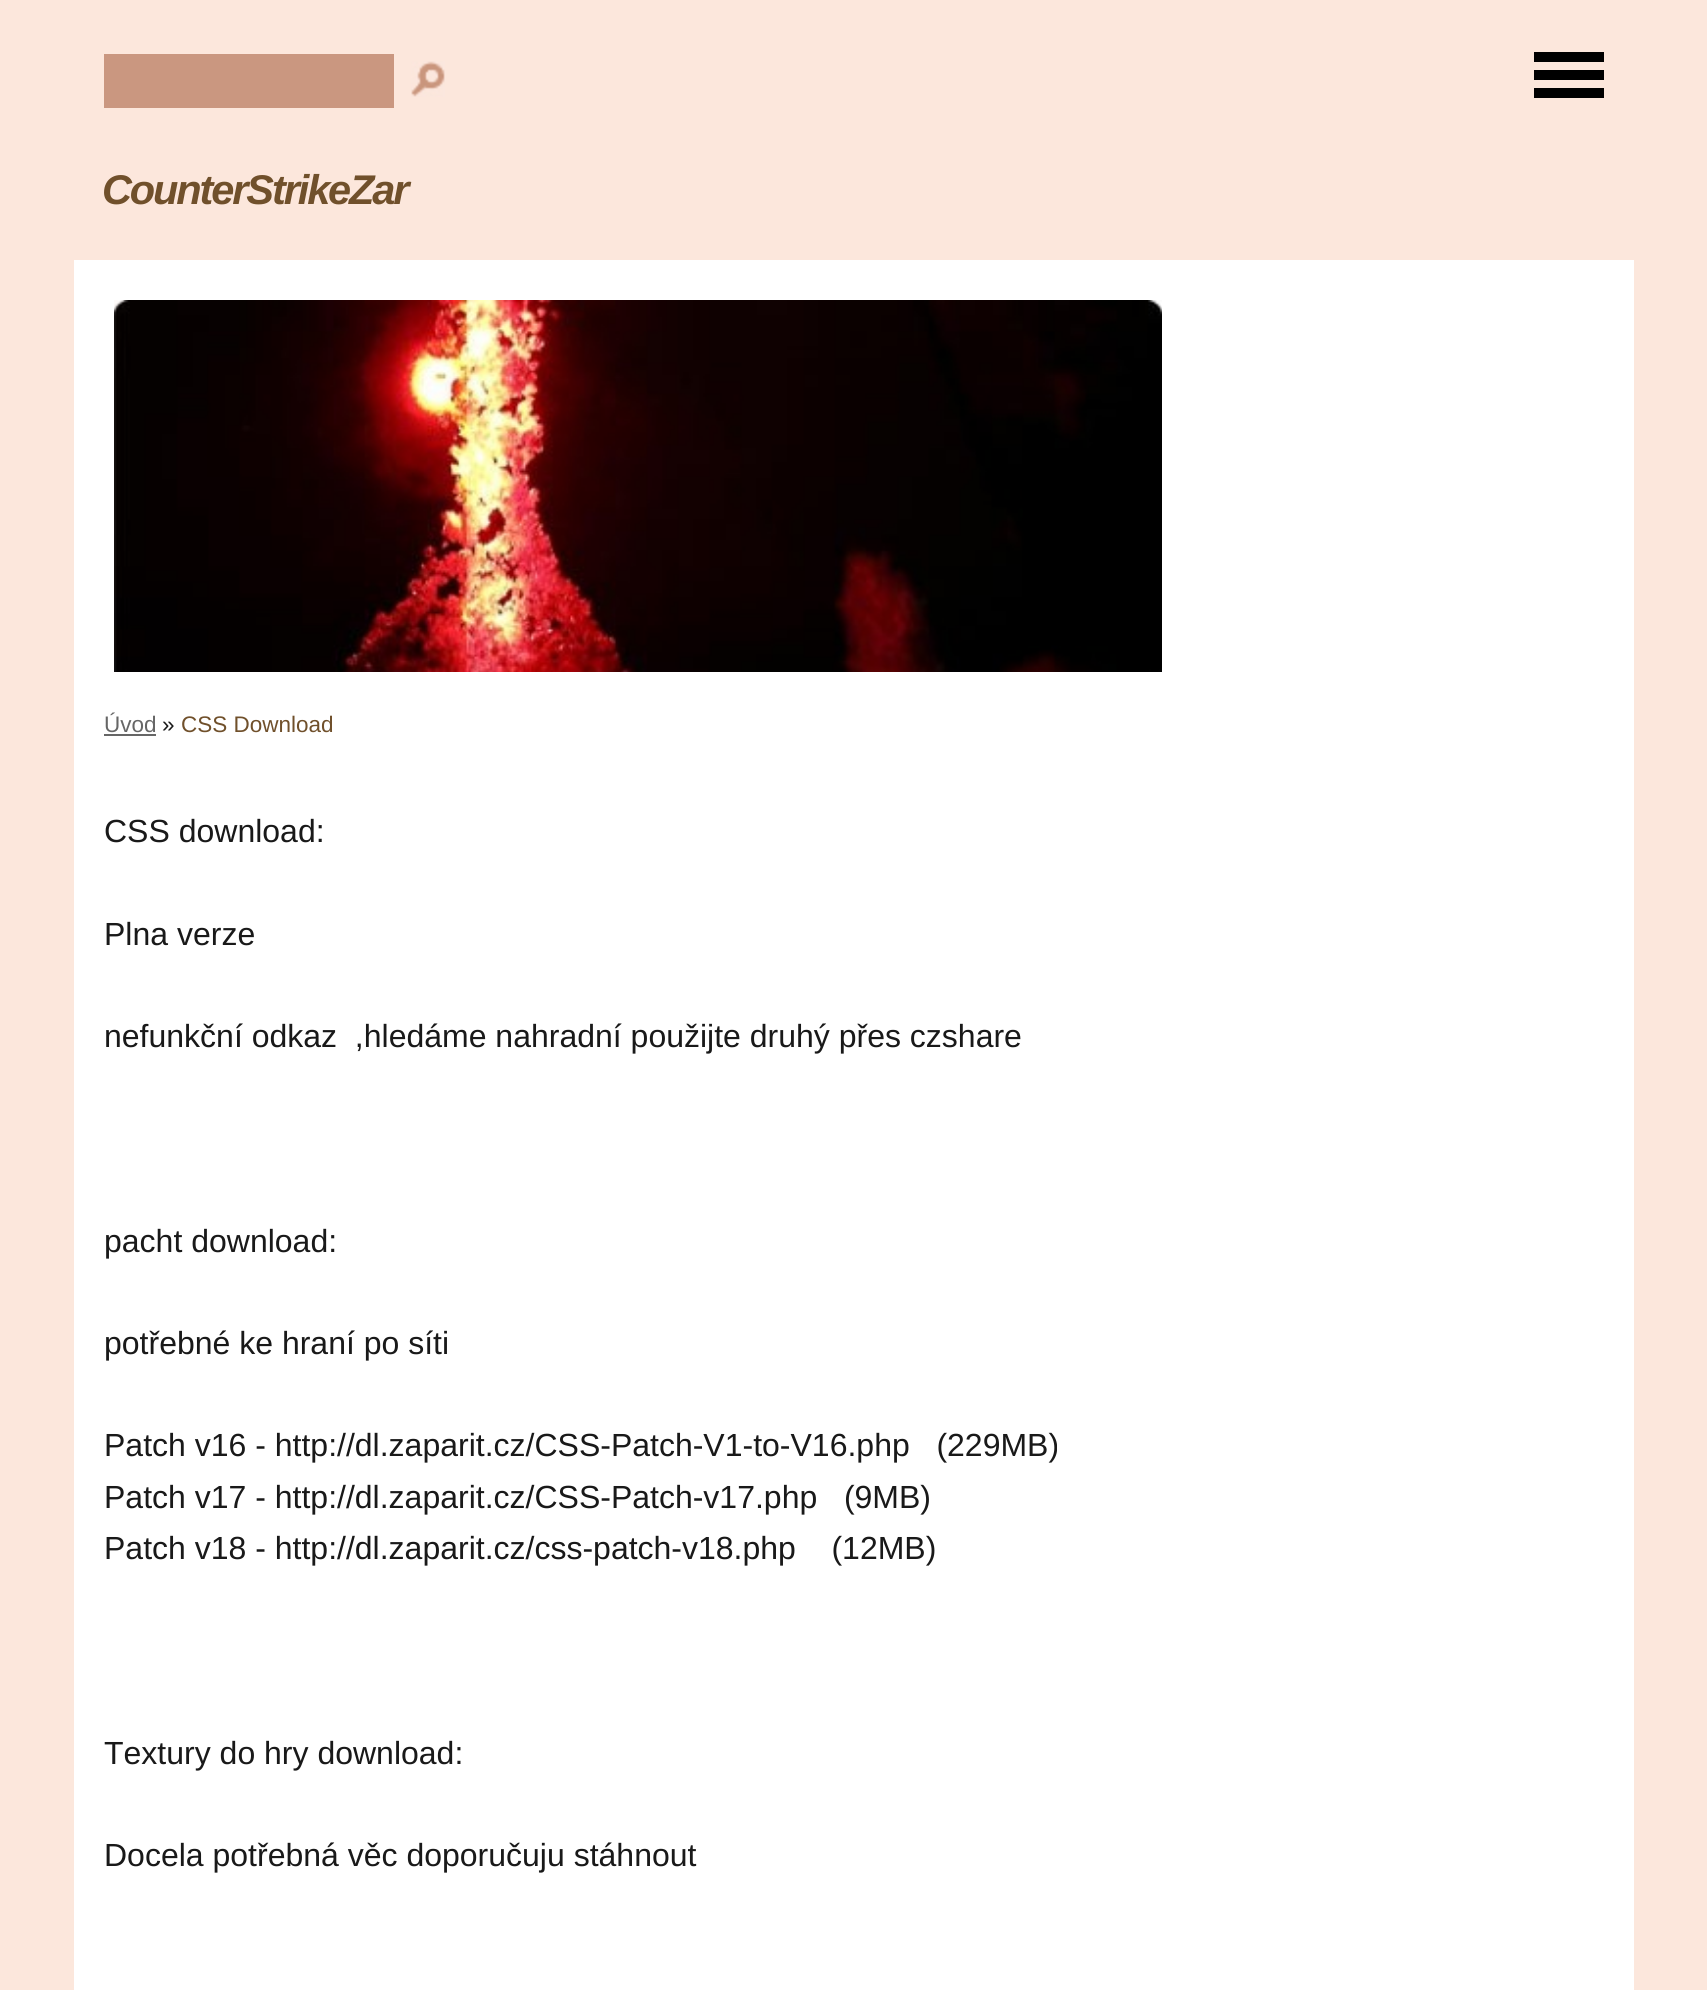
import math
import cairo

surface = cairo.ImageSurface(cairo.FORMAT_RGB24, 1707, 1990)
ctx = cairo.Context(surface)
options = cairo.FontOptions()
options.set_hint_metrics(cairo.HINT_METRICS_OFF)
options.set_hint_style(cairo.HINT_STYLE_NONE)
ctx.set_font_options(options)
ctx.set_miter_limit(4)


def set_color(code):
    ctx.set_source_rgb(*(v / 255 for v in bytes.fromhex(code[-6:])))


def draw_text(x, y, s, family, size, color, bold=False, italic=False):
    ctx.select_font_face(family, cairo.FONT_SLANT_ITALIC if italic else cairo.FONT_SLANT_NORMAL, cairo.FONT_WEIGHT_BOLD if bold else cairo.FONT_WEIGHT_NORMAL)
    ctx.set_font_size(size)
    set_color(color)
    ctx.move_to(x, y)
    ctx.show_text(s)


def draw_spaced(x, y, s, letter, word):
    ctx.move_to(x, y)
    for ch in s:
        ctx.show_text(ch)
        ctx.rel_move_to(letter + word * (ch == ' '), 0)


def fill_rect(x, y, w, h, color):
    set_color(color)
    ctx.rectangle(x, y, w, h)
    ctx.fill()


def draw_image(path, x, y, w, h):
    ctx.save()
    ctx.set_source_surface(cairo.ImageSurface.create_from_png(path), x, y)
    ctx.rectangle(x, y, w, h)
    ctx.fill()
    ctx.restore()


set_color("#fce7dc")
ctx.paint()
fill_rect(74, 260, 1560, 1730, "#ffffff")
fill_rect(104, 54, 290, 54, "#ca9780")
draw_image("assets/img1.png", 411, 61, 34, 36)
fill_rect(1534, 52, 70, 10, "#000000")
fill_rect(1534, 70, 70, 10, "#000000")
fill_rect(1534, 88, 70, 10, "#000000")
draw_image("assets/img2.png", 114, 300, 1048, 372)
ctx.select_font_face("Liberation Sans", cairo.FONT_SLANT_ITALIC, cairo.FONT_WEIGHT_BOLD)
ctx.set_font_size(41.5)
set_color("#70502b")
draw_spaced(102, 204, "CounterStrikeZar", -2.1, 0)
draw_text(104, 732, "Úvod", "Liberation Sans", 22.5, "#666666")
fill_rect(104, 734, 52, 2, "#666666")
draw_text(162, 732, "»", "Liberation Sans", 22.5, "#191919")
draw_text(181, 732, "CSS Download", "Liberation Sans", 22.5, "#70502b")
draw_text(104, 842, "CSS download:", "Liberation Sans", 32, "#191919")
draw_text(104, 945, "Plna verze", "Liberation Sans", 32, "#191919")
draw_text(104, 1047, "nefunkční odkaz  ,hledáme nahradní použijte druhý přes czshare", "Liberation Sans", 32, "#191919")
draw_text(104, 1252, "pacht download:", "Liberation Sans", 32, "#191919")
draw_text(104, 1354, "potřebné ke hraní po síti", "Liberation Sans", 32, "#191919")
draw_text(104, 1456, "Patch v16 - http://dl.zaparit.cz/CSS-Patch-V1-to-V16.php   (229MB)", "Liberation Sans", 32, "#191919")
draw_text(104, 1508, "Patch v17 - http://dl.zaparit.cz/CSS-Patch-v17.php   (9MB)", "Liberation Sans", 32, "#191919")
draw_text(104, 1559, "Patch v18 - http://dl.zaparit.cz/css-patch-v18.php    (12MB)", "Liberation Sans", 32, "#191919")
draw_text(104, 1764, "Textury do hry download:", "Liberation Sans", 32, "#191919")
draw_text(104, 1866, "Docela potřebná věc doporučuju stáhnout", "Liberation Sans", 32, "#191919")
surface.write_to_png("output.png")
